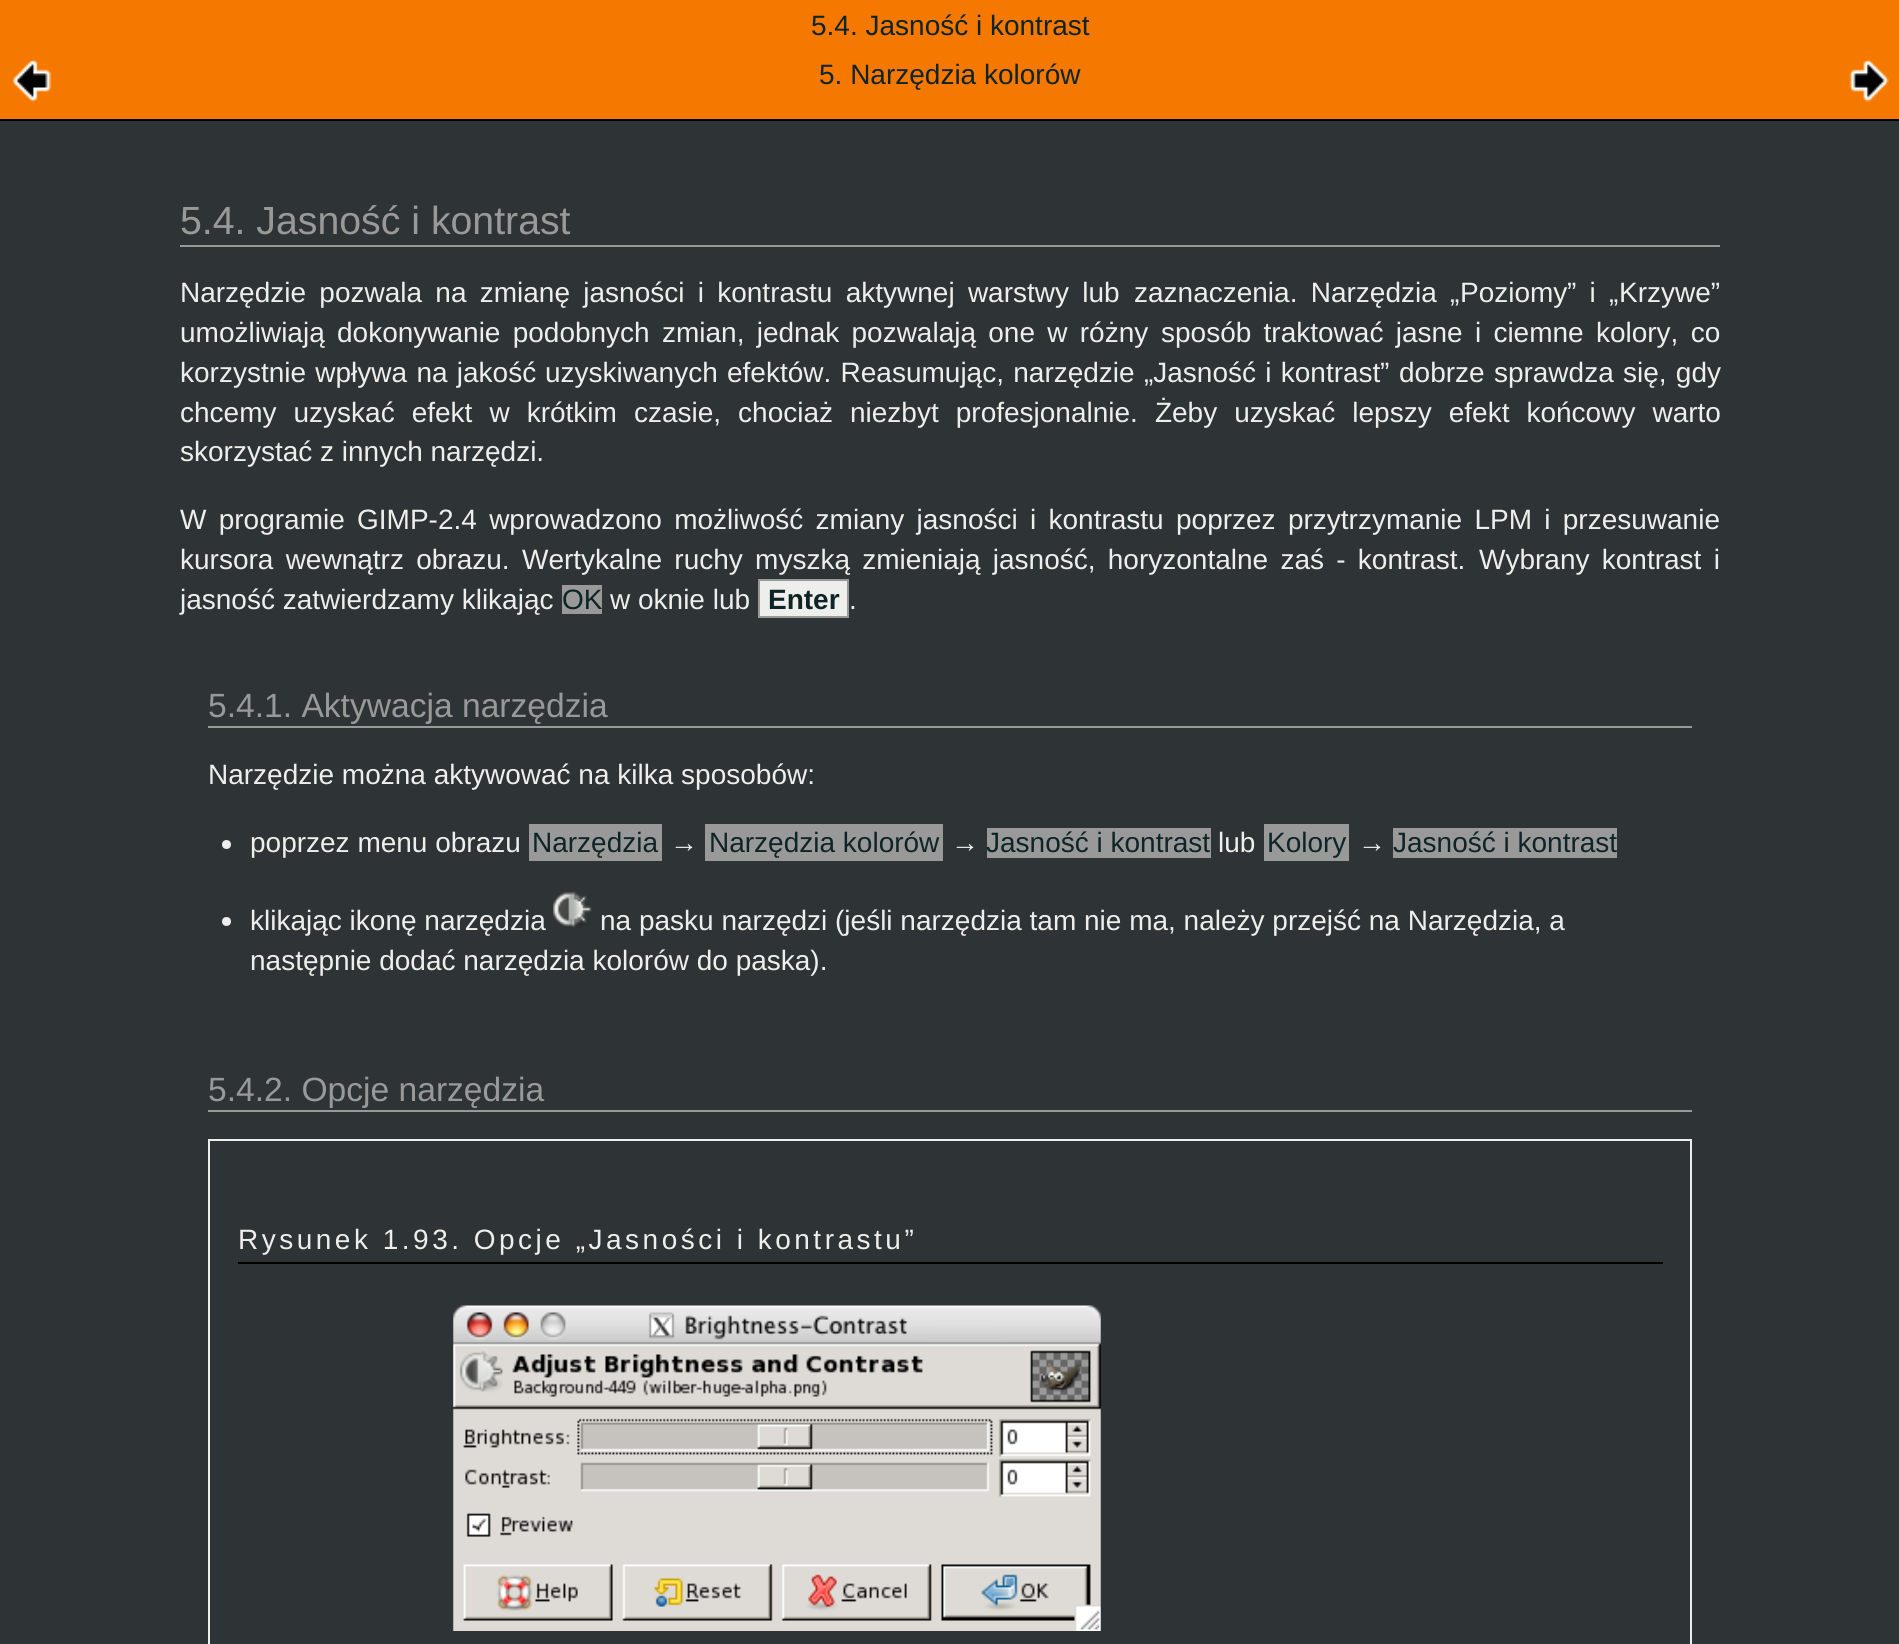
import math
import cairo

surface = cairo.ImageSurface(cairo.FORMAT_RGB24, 1899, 1644)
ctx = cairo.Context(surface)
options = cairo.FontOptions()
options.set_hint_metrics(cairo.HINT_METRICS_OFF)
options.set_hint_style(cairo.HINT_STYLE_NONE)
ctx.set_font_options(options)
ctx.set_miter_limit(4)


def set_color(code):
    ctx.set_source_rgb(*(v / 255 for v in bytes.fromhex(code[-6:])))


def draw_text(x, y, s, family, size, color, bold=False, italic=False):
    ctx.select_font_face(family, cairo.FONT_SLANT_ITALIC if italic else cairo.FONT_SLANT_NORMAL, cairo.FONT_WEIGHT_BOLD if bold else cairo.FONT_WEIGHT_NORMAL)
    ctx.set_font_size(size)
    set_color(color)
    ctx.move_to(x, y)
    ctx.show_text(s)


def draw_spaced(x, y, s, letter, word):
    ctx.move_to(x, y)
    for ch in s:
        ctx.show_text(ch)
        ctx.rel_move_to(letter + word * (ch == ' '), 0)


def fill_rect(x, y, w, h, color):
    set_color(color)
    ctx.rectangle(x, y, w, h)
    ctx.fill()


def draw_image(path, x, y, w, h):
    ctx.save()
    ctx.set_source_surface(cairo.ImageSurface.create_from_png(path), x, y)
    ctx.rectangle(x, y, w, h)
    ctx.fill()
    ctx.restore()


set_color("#2e3436")
ctx.paint()
fill_rect(0, 0, 1899, 119, "#f57900")
fill_rect(0, 119, 1899, 2, "#000000")
draw_text(811, 35, "5.4. Jasność i kontrast", "Liberation Sans", 28, "#0e2426")
draw_image("assets/img1.png", 12, 59, 40, 43)
draw_text(819, 84, "5. Narzędzia kolorów", "Liberation Sans", 28, "#0e2426")
draw_image("assets/img2.png", 1849, 59, 40, 43)
fill_rect(180, 245, 1540, 2, "#999999")
draw_text(180, 234, "5.4. Jasność i kontrast", "Liberation Sans", 39.25, "#999999")
ctx.set_font_size(28)
set_color("#eeeeec")
draw_spaced(180, 302, "Narzędzie pozwala na zmianę jasności i kontrastu aktywnej warstwy lub", 0, 5.5)
draw_spaced(1134, 302, "zaznaczenia. Narzędzia „", 0, 5.5)
draw_text(1460, 302, "Poziomy", "Liberation Sans", 28, "#eeeeec")
draw_spaced(1567, 302, "” i „", 0, 5.5)
draw_text(1619, 302, "Krzywe”", "Liberation Sans", 28, "#eeeeec")
draw_spaced(180, 342, "umożliwiają dokonywanie podobnych zmian, jednak pozwalają one w różny", 0, 4.5)
draw_spaced(1161, 342, "sposób traktować jasne i ciemne kolory, co", 0, 4.5)
draw_spaced(180, 382, "korzystnie wpływa na jakość", 0, 1.5)
draw_spaced(545, 382, "uzyskiwanych efektów. Reasumując, narzędzie „Jasność i kontrast", 0, 1.5)
draw_text(1380, 382, "”", "Liberation Sans", 28, "#eeeeec")
draw_spaced(1399, 382, "dobrze sprawdza się, gdy", 0, 1.5)
draw_spaced(180, 422, "chcemy uzyskać efekt w krótkim czasie, chociaż", 0, 9.25)
draw_spaced(850, 422, "niezbyt profesjonalnie. Żeby uzyskać lepszy efekt końcowy warto", 0, 9.25)
draw_text(180, 461, "skorzystać z innych narzędzi.", "Liberation Sans", 28, "#eeeeec")
draw_spaced(180, 529, "W programie GIMP-2.4 wprowadzono możliwość zmiany jasności i kontrastu", 0, 4.5)
draw_spaced(1176, 529, "poprzez przytrzymanie LPM i przesuwanie", 0, 4.5)
draw_spaced(180, 569, "kursora wewnątrz obrazu.", 0, 4.5)
draw_spaced(522, 569, "Wertykalne ruchy myszką zmieniają jasność, horyzontalne zaś - kontrast.", 0, 4.5)
draw_spaced(1479, 569, "Wybrany kontrast i", 0, 4.5)
draw_text(180, 609, "jasność zatwierdzamy klikając", "Liberation Sans", 28, "#eeeeec")
fill_rect(562, 585, 40, 29, "#999999")
draw_text(562, 609, "OK", "Liberation Sans", 28, "#0e2426")
draw_text(610, 609, "w oknie lub", "Liberation Sans", 28, "#eeeeec")
ctx.rectangle(759, 580, 89, 37)
ctx.fill_preserve()
set_color("#999999")
ctx.stroke()
draw_text(768, 609, "Enter", "Liberation Sans", 28, "#0e2426", bold=True)
draw_text(849, 609, ".", "Liberation Sans", 28, "#eeeeec")
fill_rect(208, 726, 1484, 2, "#999999")
draw_text(208, 717, "5.4.1. Aktywacja narzędzia", "Liberation Sans", 33.6, "#999999")
draw_text(208, 784, "Narzędzie można aktywować na kilka sposobów:", "Liberation Sans", 28, "#eeeeec")
ctx.new_path()
ctx.arc(226.5, 844.5, 4.5, 0, 2 * math.pi)
ctx.fill()
draw_text(250, 852, "poprzez menu obrazu", "Liberation Sans", 28, "#eeeeec")
fill_rect(529, 824, 133, 37, "#999999")
draw_text(532, 852, "Narzędzia", "Liberation Sans", 28, "#0e2426")
draw_text(670, 852, "→", "Liberation Sans", 28, "#eeeeec")
fill_rect(705, 824, 238, 37, "#999999")
draw_text(709, 852, "Narzędzia kolorów", "Liberation Sans", 28, "#0e2426")
draw_text(951, 852, "→", "Liberation Sans", 28, "#eeeeec")
fill_rect(987, 828, 224, 30, "#999999")
draw_text(986, 852, "Jasność i kontrast", "Liberation Sans", 28, "#0e2426")
draw_text(1218, 852, "lub", "Liberation Sans", 28, "#eeeeec")
fill_rect(1264, 824, 85, 37, "#999999")
draw_text(1267, 852, "Kolory", "Liberation Sans", 28, "#0e2426")
draw_text(1358, 852, "→", "Liberation Sans", 28, "#eeeeec")
fill_rect(1393, 828, 224, 30, "#999999")
draw_text(1393, 852, "Jasność i kontrast", "Liberation Sans", 28, "#0e2426")
set_color("#eeeeec")
ctx.new_path()
ctx.arc(226.5, 921.5, 4.5, 0, 2 * math.pi)
ctx.fill()
draw_text(250, 930, "klikając ikonę narzędzia", "Liberation Sans", 28, "#eeeeec")
draw_image("assets/img3.png", 553, 891, 39, 37)
draw_text(600, 930, "na pasku narzędzi (jeśli narzędzia tam nie ma, należy przejść na Narzędzia, a", "Liberation Sans", 28, "#eeeeec")
draw_text(250, 970, "następnie dodać narzędzia kolorów do paska).", "Liberation Sans", 28, "#eeeeec")
fill_rect(208, 1110, 1484, 2, "#999999")
draw_text(208, 1101, "5.4.2. Opcje narzędzia", "Liberation Sans", 33.6, "#999999")
ctx.rectangle(209, 1140, 1482, 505)
set_color("#eeeeec")
ctx.stroke()
fill_rect(238, 1262, 1425, 2, "#000000")
ctx.set_font_size(28)
set_color("#eeeeec")
draw_spaced(238, 1249, "Rysunek 1.93. Opcje „Jasności i kontrastu”", 3.5, 0)
draw_image("assets/img4.png", 453, 1305, 648, 326)
surface.write_to_png("output.png")
